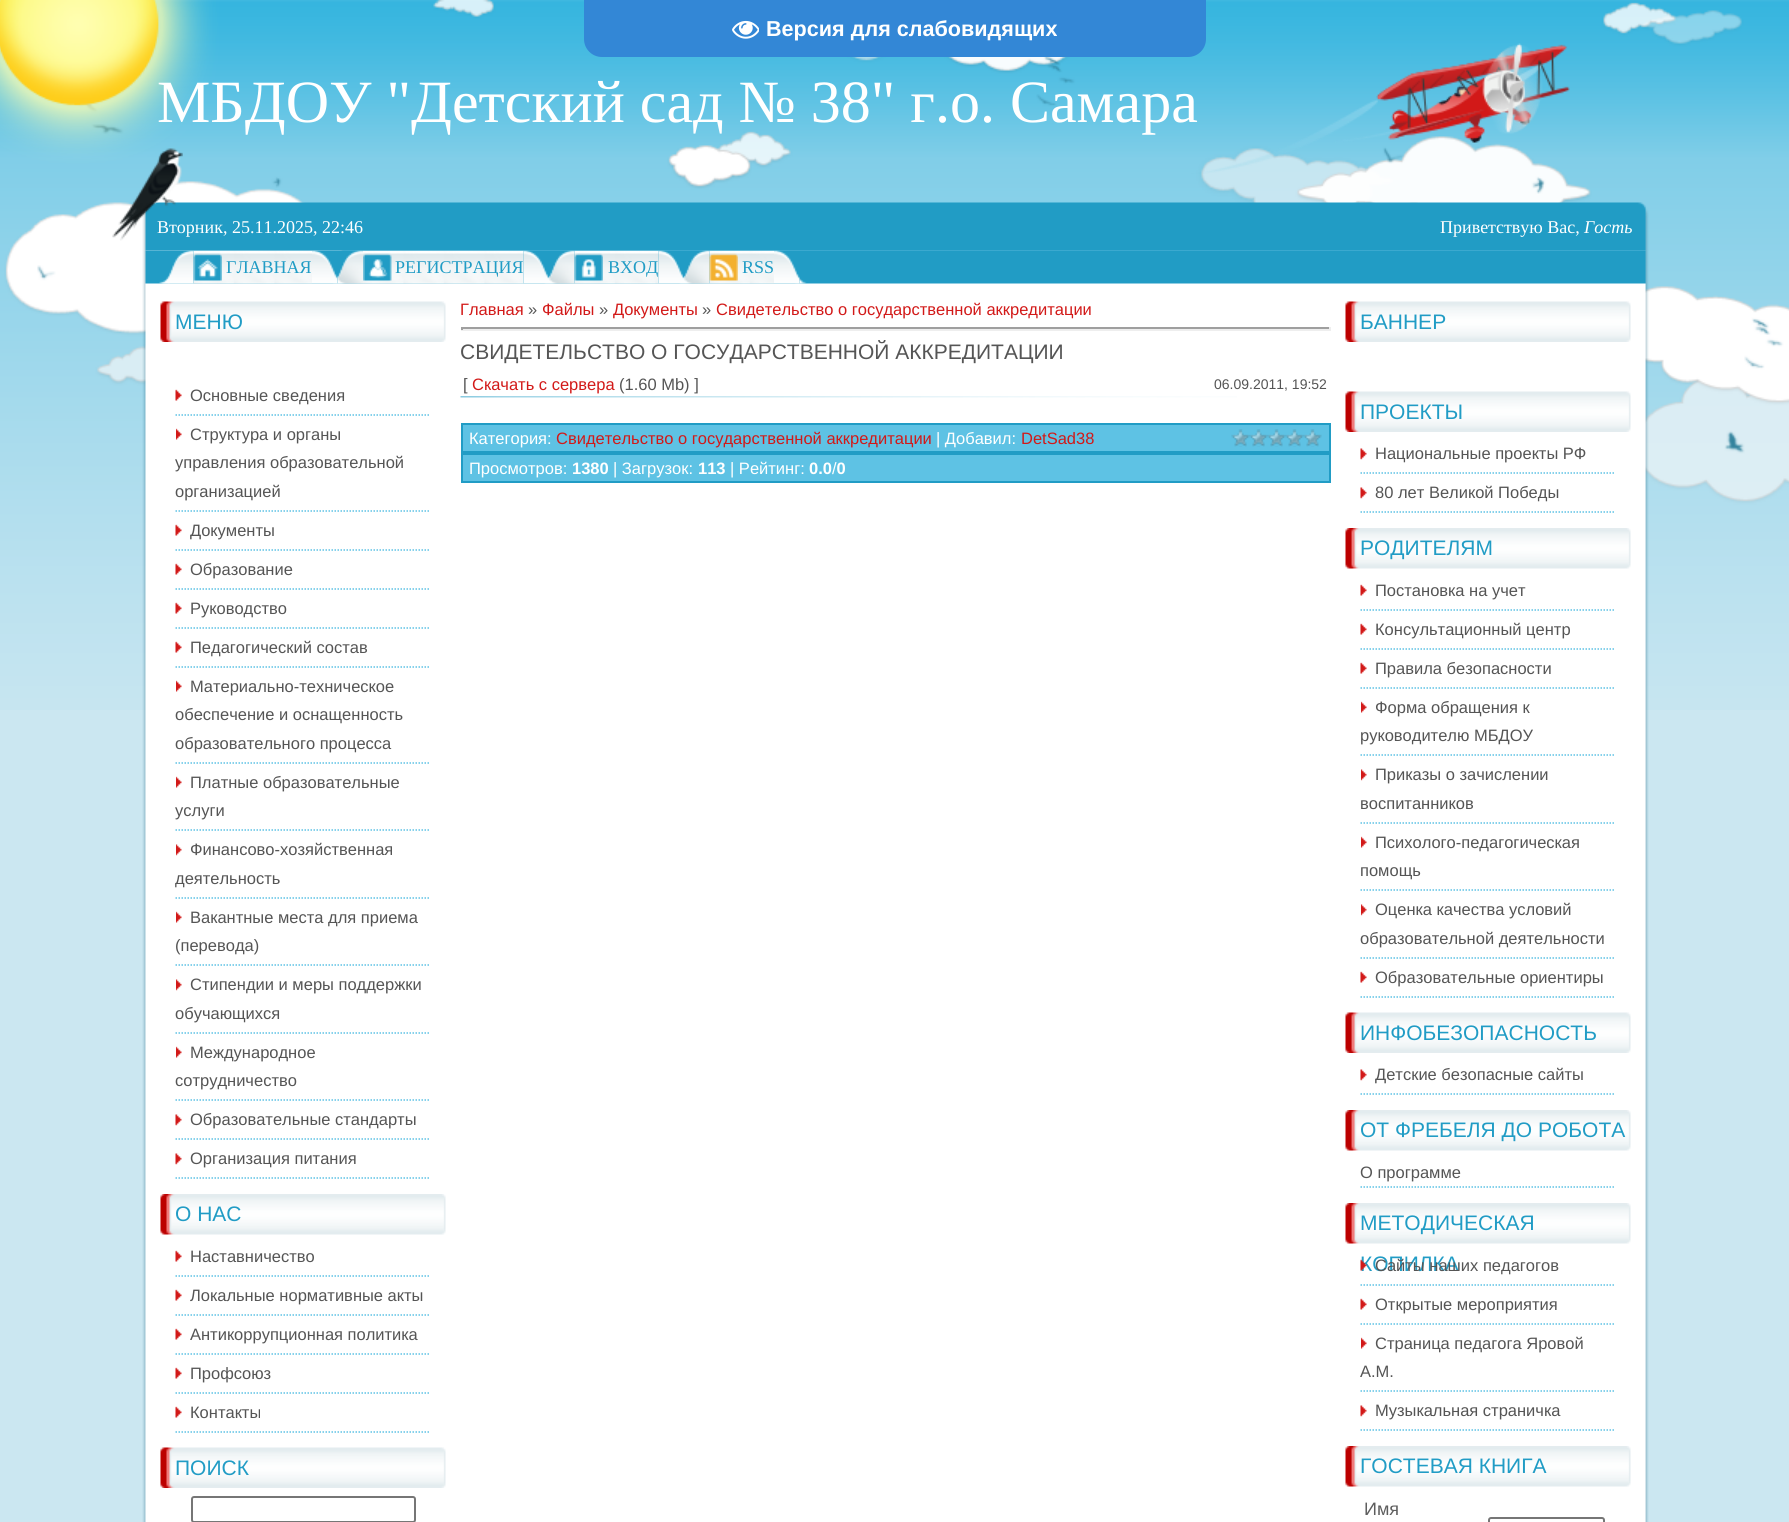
import math
import cairo

surface = cairo.ImageSurface(cairo.FORMAT_RGB24, 1789, 1522)
ctx = cairo.Context(surface)
options = cairo.FontOptions()
options.set_hint_metrics(cairo.HINT_METRICS_OFF)
options.set_hint_style(cairo.HINT_STYLE_NONE)
ctx.set_font_options(options)
ctx.set_miter_limit(4)


def set_color(code):
    ctx.set_source_rgb(*(v / 255 for v in bytes.fromhex(code[-6:])))


def draw_text(x, y, s, family, size, color, bold=False, italic=False):
    ctx.select_font_face(family, cairo.FONT_SLANT_ITALIC if italic else cairo.FONT_SLANT_NORMAL, cairo.FONT_WEIGHT_BOLD if bold else cairo.FONT_WEIGHT_NORMAL)
    ctx.set_font_size(size)
    set_color(color)
    ctx.move_to(x, y)
    ctx.show_text(s)


def fill_rect(x, y, w, h, color):
    set_color(color)
    ctx.rectangle(x, y, w, h)
    ctx.fill()


def rounded_rect(x, y, w, h, r):
    ctx.new_sub_path()
    for i, (u, v) in enumerate([(x + w - r, y + h - r), (x + r, y + h - r), (x + r, y + r), (x + w - r, y + r)]):
        ctx.arc(u, v, r, i * math.pi / 2, (i + 1) * math.pi / 2)
    ctx.close_path()


def draw_image(path, x, y, w, h):
    ctx.save()
    ctx.set_source_surface(cairo.ImageSurface.create_from_png(path), x, y)
    ctx.rectangle(x, y, w, h)
    ctx.fill()
    ctx.restore()


set_color("#cbe7f1")
ctx.paint()
draw_image("assets/img2.png", 0, 0, 1789, 710)
draw_image("assets/img3.png", 0, 0, 1570, 174)
set_color("#3387d6")
ctx.new_path()
ctx.move_to(584, 0)
ctx.line_to(1206, 0)
ctx.line_to(1206, 39)
ctx.curve_to(1206, 49, 1198, 57, 1188, 57)
ctx.line_to(602, 57)
ctx.curve_to(592, 57, 584, 49, 584, 39)
ctx.close_path()
ctx.fill()
draw_image("assets/img1.png", 732, 20, 27, 19)
draw_text(766, 36, "Версия для слабовидящих", "Liberation Sans", 21.6, "#ffffff", bold=True)
draw_text(157, 122, "МБДОУ \"Детский сад № 38\" г.о. Самара", "Liberation Serif", 60, "#ffffff")
draw_image("assets/img6.png", 142, 250, 1507, 35)
draw_image("assets/img7.png", 159, 250, 35, 34)
draw_image("assets/img8.png", 193, 250, 119, 34)
draw_image("assets/img10.png", 312, 250, 26, 34)
draw_image("assets/img11.png", 337, 250, 26, 34)
draw_image("assets/img12.png", 363, 250, 161, 34)
draw_text(395, 273, "РЕГИСТРАЦИЯ", "Liberation Serif", 18, "#219cc5")
draw_image("assets/img14.png", 523, 250, 26, 34)
draw_image("assets/img15.png", 549, 250, 26, 34)
draw_image("assets/img16.png", 574, 250, 85, 34)
draw_image("assets/img18.png", 658, 250, 26, 34)
draw_image("assets/img15.png", 684, 250, 26, 34)
draw_image("assets/img19.png", 709, 250, 65, 34)
draw_image("assets/img21.png", 774, 250, 26, 34)
draw_image("assets/img4.png", 142, 202, 1507, 49)
draw_text(157, 233, "Вторник, 25.11.2025, 22:46", "Liberation Serif", 18, "#ffffff")
draw_image("assets/img5.png", 112, 148, 71, 93)
draw_text(1440, 233, "Приветствую Вас,", "Liberation Serif", 18, "#ffffff")
draw_text(1584, 233, "Гость", "Liberation Serif", 18, "#ffffff", italic=True)
draw_image("assets/img9.png", 193, 253, 29, 28)
draw_text(226, 273, "ГЛАВНАЯ", "Liberation Serif", 18, "#219cc5")
draw_image("assets/img13.png", 363, 253, 29, 28)
draw_image("assets/img17.png", 574, 253, 29, 28)
draw_text(608, 273, "ВХОД", "Liberation Serif", 18, "#219cc5")
draw_image("assets/img20.png", 709, 253, 29, 28)
draw_text(742, 273, "RSS", "Liberation Serif", 18, "#219cc5")
draw_image("assets/img22.png", 799, 278, 8, 6)
draw_image("assets/img23.png", 142, 285, 1507, 1237)
draw_image("assets/img24.png", 160, 301, 286, 41)
draw_text(175, 329, "МЕНЮ", "Liberation Sans", 21, "#219cc5")
ctx.new_path()
ctx.move_to(175.5, 415)
ctx.line_to(430.5, 415)
set_color("#5ec2e4")
ctx.set_line_width(1.5)
ctx.set_dash([1.5, 1.5])
ctx.stroke()
draw_image("assets/img25.png", 175, 389, 7, 12)
draw_text(190, 401, "Основные сведения", "Liberation Sans", 16.5, "#555555")
ctx.new_path()
ctx.move_to(175.5, 511)
ctx.line_to(430.5, 511)
set_color("#5ec2e4")
ctx.stroke()
draw_image("assets/img26.png", 176, 428, 6, 12)
draw_text(190, 440, "Структура и органы", "Liberation Sans", 16.5, "#555555")
draw_text(175, 468, "управления образовательной", "Liberation Sans", 16.5, "#555555")
draw_text(175, 497, "организацией", "Liberation Sans", 16.5, "#555555")
ctx.new_path()
ctx.move_to(175.5, 550)
ctx.line_to(430.5, 550)
set_color("#5ec2e4")
ctx.stroke()
draw_image("assets/img25.png", 175, 524, 7, 12)
draw_text(190, 536, "Документы", "Liberation Sans", 16.5, "#555555")
ctx.new_path()
ctx.move_to(175.5, 589)
ctx.line_to(430.5, 589)
set_color("#5ec2e4")
ctx.stroke()
draw_image("assets/img25.png", 175, 563, 7, 12)
draw_text(190, 575, "Образование", "Liberation Sans", 16.5, "#555555")
ctx.new_path()
ctx.move_to(175.5, 628)
ctx.line_to(430.5, 628)
set_color("#5ec2e4")
ctx.stroke()
draw_image("assets/img25.png", 175, 602, 7, 12)
draw_text(190, 614, "Руководство", "Liberation Sans", 16.5, "#555555")
ctx.new_path()
ctx.move_to(175.5, 667)
ctx.line_to(430.5, 667)
set_color("#5ec2e4")
ctx.stroke()
draw_image("assets/img25.png", 175, 641, 7, 12)
draw_text(190, 653, "Педагогический состав", "Liberation Sans", 16.5, "#555555")
ctx.new_path()
ctx.move_to(175.5, 763)
ctx.line_to(430.5, 763)
set_color("#5ec2e4")
ctx.stroke()
draw_image("assets/img26.png", 176, 680, 6, 12)
draw_text(190, 692, "Материально-техническое", "Liberation Sans", 16.5, "#555555")
draw_text(175, 720, "обеспечение и оснащенность", "Liberation Sans", 16.5, "#555555")
draw_text(175, 749, "образовательного процесса", "Liberation Sans", 16.5, "#555555")
ctx.new_path()
ctx.move_to(175.5, 830)
ctx.line_to(430.5, 830)
set_color("#5ec2e4")
ctx.stroke()
draw_image("assets/img26.png", 176, 776, 6, 12)
draw_text(190, 788, "Платные образовательные", "Liberation Sans", 16.5, "#555555")
draw_text(175, 816, "услуги", "Liberation Sans", 16.5, "#555555")
ctx.new_path()
ctx.move_to(175.5, 898)
ctx.line_to(430.5, 898)
set_color("#5ec2e4")
ctx.stroke()
draw_image("assets/img27.png", 176, 844, 6, 12)
draw_text(190, 855, "Финансово-хозяйственная", "Liberation Sans", 16.5, "#555555")
draw_text(175, 884, "деятельность", "Liberation Sans", 16.5, "#555555")
ctx.new_path()
ctx.move_to(175.5, 965)
ctx.line_to(430.5, 965)
set_color("#5ec2e4")
ctx.stroke()
draw_image("assets/img26.png", 176, 911, 6, 12)
draw_text(190, 923, "Вакантные места для приема", "Liberation Sans", 16.5, "#555555")
draw_text(175, 951, "(перевода)", "Liberation Sans", 16.5, "#555555")
ctx.new_path()
ctx.move_to(175.5, 1033)
ctx.line_to(430.5, 1033)
set_color("#5ec2e4")
ctx.stroke()
draw_image("assets/img27.png", 176, 979, 6, 12)
draw_text(190, 990, "Стипендии и меры поддержки", "Liberation Sans", 16.5, "#555555")
draw_text(175, 1019, "обучающихся", "Liberation Sans", 16.5, "#555555")
ctx.new_path()
ctx.move_to(175.5, 1100)
ctx.line_to(430.5, 1100)
set_color("#5ec2e4")
ctx.stroke()
draw_image("assets/img26.png", 176, 1046, 6, 12)
draw_text(190, 1058, "Международное", "Liberation Sans", 16.5, "#555555")
draw_text(175, 1086, "сотрудничество", "Liberation Sans", 16.5, "#555555")
ctx.new_path()
ctx.move_to(175.5, 1139)
ctx.line_to(430.5, 1139)
set_color("#5ec2e4")
ctx.stroke()
draw_image("assets/img28.png", 175, 1114, 7, 12)
draw_text(190, 1125, "Образовательные стандарты", "Liberation Sans", 16.5, "#555555")
ctx.new_path()
ctx.move_to(175.5, 1178)
ctx.line_to(430.5, 1178)
set_color("#5ec2e4")
ctx.stroke()
draw_image("assets/img28.png", 175, 1153, 7, 12)
draw_text(190, 1164, "Организация питания", "Liberation Sans", 16.5, "#555555")
draw_image("assets/img29.png", 160, 1194, 286, 41)
draw_text(175, 1221, "О НАС", "Liberation Sans", 21, "#219cc5")
ctx.new_path()
ctx.move_to(175.5, 1276)
ctx.line_to(430.5, 1276)
set_color("#5ec2e4")
ctx.stroke()
draw_image("assets/img25.png", 175, 1250, 7, 12)
draw_text(190, 1262, "Наставничество", "Liberation Sans", 16.5, "#555555")
ctx.new_path()
ctx.move_to(175.5, 1315)
ctx.line_to(430.5, 1315)
set_color("#5ec2e4")
ctx.stroke()
draw_image("assets/img25.png", 175, 1289, 7, 12)
draw_text(190, 1301, "Локальные нормативные акты", "Liberation Sans", 16.5, "#555555")
ctx.new_path()
ctx.move_to(175.5, 1354)
ctx.line_to(430.5, 1354)
set_color("#5ec2e4")
ctx.stroke()
draw_image("assets/img25.png", 175, 1328, 7, 12)
draw_text(190, 1340, "Антикоррупционная политика", "Liberation Sans", 16.5, "#555555")
ctx.new_path()
ctx.move_to(175.5, 1393)
ctx.line_to(430.5, 1393)
set_color("#5ec2e4")
ctx.stroke()
draw_image("assets/img25.png", 175, 1367, 7, 12)
draw_text(190, 1379, "Профсоюз", "Liberation Sans", 16.5, "#555555")
ctx.new_path()
ctx.move_to(175.5, 1432)
ctx.line_to(430.5, 1432)
set_color("#5ec2e4")
ctx.stroke()
draw_image("assets/img25.png", 175, 1406, 7, 12)
draw_text(190, 1418, "Контакты", "Liberation Sans", 16.5, "#555555")
draw_image("assets/img24.png", 160, 1447, 286, 41)
draw_text(175, 1475, "ПОИСК", "Liberation Sans", 21, "#219cc5")
rounded_rect(192, 1497, 223, 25, 2)
set_color("#767676")
ctx.set_line_width(2)
ctx.set_dash([])
ctx.stroke()
draw_text(460, 315, "Главная", "Liberation Sans", 16.5, "#d21918")
draw_text(528, 315, "»", "Liberation Sans", 16.5, "#555555")
draw_text(542, 315, "Файлы", "Liberation Sans", 16.5, "#d21918")
draw_text(599, 315, "»", "Liberation Sans", 16.5, "#555555")
draw_text(613, 315, "Документы", "Liberation Sans", 16.5, "#d21918")
draw_text(702, 315, "»", "Liberation Sans", 16.5, "#555555")
draw_text(716, 315, "Свидетельство о государственной аккредитации", "Liberation Sans", 16.5, "#d21918")
fill_rect(461, 327, 870, 2, "#9f9f9f")
fill_rect(1329, 327, 2, 3, "#eeeeee")
fill_rect(461, 329, 870, 2, "#eeeeee")
fill_rect(461, 327, 2, 3, "#9f9f9f")
draw_text(460, 359, "СВИДЕТЕЛЬСТВО О ГОСУДАРСТВЕННОЙ АККРЕДИТАЦИИ", "Liberation Sans", 21, "#555555")
draw_text(463, 390, "[", "Liberation Sans", 16.5, "#555555")
draw_text(472, 390, "Скачать с сервера", "Liberation Sans", 16.5, "#d21918")
draw_text(619, 390, "(1.60 Mb) ]", "Liberation Sans", 16.5, "#555555")
draw_text(1214, 389, "06.09.2011, 19:52", "Liberation Sans", 14, "#555555")
draw_image("assets/img30.png", 460, 396, 777, 2)
set_color("#5ec2e4")
ctx.rectangle(462, 424, 868, 28)
ctx.fill_preserve()
set_color("#219cc5")
ctx.stroke()
draw_text(469, 444, "Категория:", "Liberation Sans", 16.5, "#ffffff")
draw_text(556, 444, "Свидетельство о государственной аккредитации", "Liberation Sans", 16.5, "#d21918")
draw_text(936, 444, "| Добавил:", "Liberation Sans", 16.5, "#ffffff")
draw_text(1021, 444, "DetSad38", "Liberation Sans", 16.5, "#d21918")
draw_image("assets/img31.png", 1231, 429, 91, 18)
set_color("#5ec2e4")
ctx.rectangle(462, 454, 868, 28)
ctx.fill_preserve()
set_color("#219cc5")
ctx.stroke()
draw_text(469, 474, "Просмотров:", "Liberation Sans", 16.5, "#ffffff")
draw_text(572, 474, "1380", "Liberation Sans", 16.5, "#ffffff", bold=True)
draw_text(613, 474, "| Загрузок:", "Liberation Sans", 16.5, "#ffffff")
draw_text(698, 474, "113", "Liberation Sans", 16.5, "#ffffff", bold=True)
draw_text(730, 474, "| Рейтинг:", "Liberation Sans", 16.5, "#ffffff")
draw_text(809, 474, "0.0 0", "Liberation Sans", 16.5, "#ffffff", bold=True)
draw_text(832, 474, "/", "Liberation Sans", 16.5, "#ffffff")
draw_image("assets/img32.png", 1345, 301, 286, 41)
draw_text(1360, 329, "БАННЕР", "Liberation Sans", 21, "#219cc5")
draw_image("assets/img32.png", 1345, 391, 286, 41)
draw_text(1360, 419, "ПРОЕКТЫ", "Liberation Sans", 21, "#219cc5")
ctx.new_path()
ctx.move_to(1360.5, 473)
ctx.line_to(1615.5, 473)
set_color("#5ec2e4")
ctx.set_line_width(1.5)
ctx.set_dash([1.5, 1.5])
ctx.stroke()
draw_image("assets/img33.png", 1360, 448, 7, 12)
draw_text(1375, 459, "Национальные проекты РФ", "Liberation Sans", 16.5, "#555555")
ctx.new_path()
ctx.move_to(1360.5, 512)
ctx.line_to(1615.5, 512)
set_color("#5ec2e4")
ctx.stroke()
draw_image("assets/img33.png", 1360, 487, 7, 12)
draw_text(1375, 498, "80 лет Великой Победы", "Liberation Sans", 16.5, "#555555")
draw_image("assets/img34.png", 1345, 528, 286, 41)
draw_text(1360, 555, "РОДИТЕЛЯМ", "Liberation Sans", 21, "#219cc5")
ctx.new_path()
ctx.move_to(1360.5, 610)
ctx.line_to(1615.5, 610)
set_color("#5ec2e4")
ctx.stroke()
draw_image("assets/img35.png", 1360, 584, 7, 12)
draw_text(1375, 596, "Постановка на учет", "Liberation Sans", 16.5, "#555555")
ctx.new_path()
ctx.move_to(1360.5, 649)
ctx.line_to(1615.5, 649)
set_color("#5ec2e4")
ctx.stroke()
draw_image("assets/img35.png", 1360, 623, 7, 12)
draw_text(1375, 635, "Консультационный центр", "Liberation Sans", 16.5, "#555555")
ctx.new_path()
ctx.move_to(1360.5, 688)
ctx.line_to(1615.5, 688)
set_color("#5ec2e4")
ctx.stroke()
draw_image("assets/img35.png", 1360, 662, 7, 12)
draw_text(1375, 674, "Правила безопасности", "Liberation Sans", 16.5, "#555555")
ctx.new_path()
ctx.move_to(1360.5, 755)
ctx.line_to(1615.5, 755)
set_color("#5ec2e4")
ctx.stroke()
draw_image("assets/img36.png", 1361, 701, 6, 12)
draw_text(1375, 713, "Форма обращения к", "Liberation Sans", 16.5, "#555555")
draw_text(1360, 741, "руководителю МБДОУ", "Liberation Sans", 16.5, "#555555")
ctx.new_path()
ctx.move_to(1360.5, 823)
ctx.line_to(1615.5, 823)
set_color("#5ec2e4")
ctx.stroke()
draw_image("assets/img37.png", 1361, 769, 6, 12)
draw_text(1375, 780, "Приказы о зачислении", "Liberation Sans", 16.5, "#555555")
draw_text(1360, 809, "воспитанников", "Liberation Sans", 16.5, "#555555")
ctx.new_path()
ctx.move_to(1360.5, 890)
ctx.line_to(1615.5, 890)
set_color("#5ec2e4")
ctx.stroke()
draw_image("assets/img36.png", 1361, 836, 6, 12)
draw_text(1375, 848, "Психолого-педагогическая", "Liberation Sans", 16.5, "#555555")
draw_text(1360, 876, "помощь", "Liberation Sans", 16.5, "#555555")
ctx.new_path()
ctx.move_to(1360.5, 958)
ctx.line_to(1615.5, 958)
set_color("#5ec2e4")
ctx.stroke()
draw_image("assets/img37.png", 1361, 904, 6, 12)
draw_text(1375, 915, "Оценка качества условий", "Liberation Sans", 16.5, "#555555")
draw_text(1360, 944, "образовательной деятельности", "Liberation Sans", 16.5, "#555555")
ctx.new_path()
ctx.move_to(1360.5, 997)
ctx.line_to(1615.5, 997)
set_color("#5ec2e4")
ctx.stroke()
draw_image("assets/img35.png", 1360, 971, 7, 12)
draw_text(1375, 983, "Образовательные ориентиры", "Liberation Sans", 16.5, "#555555")
draw_image("assets/img32.png", 1345, 1012, 286, 41)
draw_text(1360, 1040, "ИНФОБЕЗОПАСНОСТЬ", "Liberation Sans", 21, "#219cc5")
ctx.new_path()
ctx.move_to(1360.5, 1094)
ctx.line_to(1615.5, 1094)
set_color("#5ec2e4")
ctx.stroke()
draw_image("assets/img33.png", 1360, 1069, 7, 12)
draw_text(1375, 1080, "Детские безопасные сайты", "Liberation Sans", 16.5, "#555555")
draw_image("assets/img34.png", 1345, 1110, 286, 41)
draw_text(1360, 1137, "ОТ ФРЕБЕЛЯ ДО РОБОТА", "Liberation Sans", 21, "#219cc5")
ctx.new_path()
ctx.move_to(1360.5, 1187)
ctx.line_to(1615.5, 1187)
set_color("#5ec2e4")
ctx.stroke()
draw_text(1360, 1178, "О программе", "Liberation Sans", 16.5, "#555555")
draw_image("assets/img34.png", 1345, 1203, 286, 41)
draw_text(1360, 1230, "МЕТОДИЧЕСКАЯ", "Liberation Sans", 21, "#219cc5")
draw_text(1360, 1271, "КОПИЛКА", "Liberation Sans", 21, "#219cc5")
ctx.new_path()
ctx.move_to(1360.5, 1285)
ctx.line_to(1615.5, 1285)
set_color("#5ec2e4")
ctx.stroke()
draw_image("assets/img38.png", 1360, 1259, 7, 12)
draw_text(1375, 1271, "Сайты наших педагогов", "Liberation Sans", 16.5, "#555555")
ctx.new_path()
ctx.move_to(1360.5, 1324)
ctx.line_to(1615.5, 1324)
set_color("#5ec2e4")
ctx.stroke()
draw_image("assets/img35.png", 1360, 1298, 7, 12)
draw_text(1375, 1310, "Открытые мероприятия", "Liberation Sans", 16.5, "#555555")
ctx.new_path()
ctx.move_to(1360.5, 1391)
ctx.line_to(1615.5, 1391)
set_color("#5ec2e4")
ctx.stroke()
draw_image("assets/img36.png", 1361, 1337, 6, 12)
draw_text(1375, 1349, "Страница педагога Яровой", "Liberation Sans", 16.5, "#555555")
draw_text(1360, 1377, "А.М.", "Liberation Sans", 16.5, "#555555")
ctx.new_path()
ctx.move_to(1360.5, 1430)
ctx.line_to(1615.5, 1430)
set_color("#5ec2e4")
ctx.stroke()
draw_image("assets/img33.png", 1360, 1405, 7, 12)
draw_text(1375, 1416, "Музыкальная страничка", "Liberation Sans", 16.5, "#555555")
draw_image("assets/img34.png", 1345, 1446, 286, 41)
draw_text(1360, 1473, "ГОСТЕВАЯ КНИГА", "Liberation Sans", 21, "#219cc5")
draw_text(1364, 1515, "Имя", "Liberation Sans", 18, "#5d5d5d")
rounded_rect(1489, 1518, 115, 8, 2)
set_color("#767676")
ctx.set_line_width(2)
ctx.set_dash([])
ctx.stroke()
surface.write_to_png("output.png")
